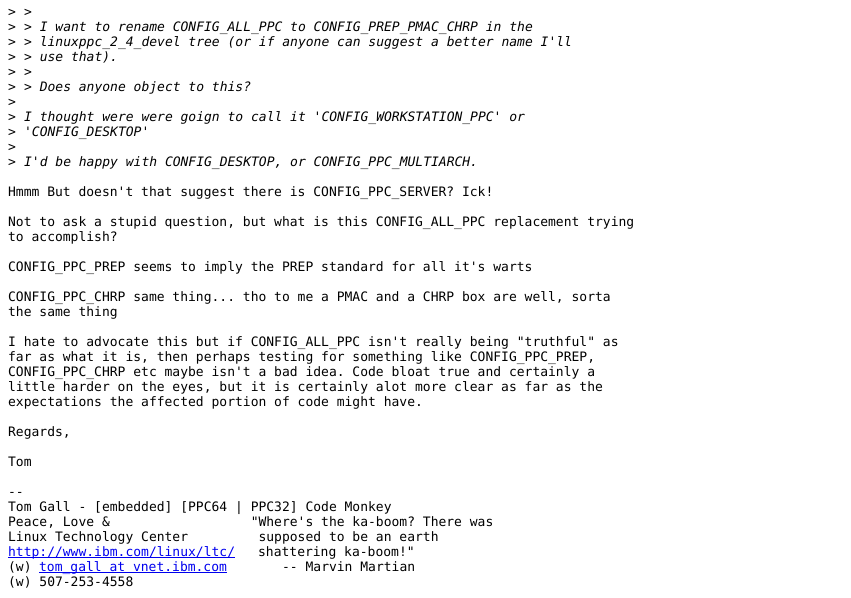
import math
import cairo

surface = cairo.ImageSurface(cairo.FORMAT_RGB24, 851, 598)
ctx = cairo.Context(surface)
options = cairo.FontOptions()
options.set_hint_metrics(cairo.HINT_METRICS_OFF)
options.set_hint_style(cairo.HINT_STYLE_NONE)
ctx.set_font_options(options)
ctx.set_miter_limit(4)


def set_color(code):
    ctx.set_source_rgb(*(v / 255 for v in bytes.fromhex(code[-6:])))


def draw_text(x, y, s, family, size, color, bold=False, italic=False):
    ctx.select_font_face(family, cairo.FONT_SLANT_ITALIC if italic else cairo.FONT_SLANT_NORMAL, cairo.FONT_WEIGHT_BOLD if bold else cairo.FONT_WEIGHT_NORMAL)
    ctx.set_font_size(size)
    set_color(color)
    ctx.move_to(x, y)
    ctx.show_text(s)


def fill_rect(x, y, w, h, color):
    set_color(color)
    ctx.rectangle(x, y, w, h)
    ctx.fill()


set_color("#ffffff")
ctx.paint()
draw_text(8, 16, ">", "DejaVu Sans Mono", 13, "#000000")
draw_text(24, 16, ">", "DejaVu Sans Mono", 13, "#000000", italic=True)
draw_text(8, 31, ">", "DejaVu Sans Mono", 13, "#000000")
draw_text(24, 31, "> I want to rename CONFIG_ALL_PPC to CONFIG_PREP_PMAC_CHRP in the", "DejaVu Sans Mono", 13, "#000000", italic=True)
draw_text(8, 46, ">", "DejaVu Sans Mono", 13, "#000000")
draw_text(24, 46, "> linuxppc_2_4_devel tree (or if anyone can suggest a better name I'll", "DejaVu Sans Mono", 13, "#000000", italic=True)
draw_text(8, 61, ">", "DejaVu Sans Mono", 13, "#000000")
draw_text(24, 61, "> use that).", "DejaVu Sans Mono", 13, "#000000", italic=True)
draw_text(8, 76, ">", "DejaVu Sans Mono", 13, "#000000")
draw_text(24, 76, ">", "DejaVu Sans Mono", 13, "#000000", italic=True)
draw_text(8, 91, ">", "DejaVu Sans Mono", 13, "#000000")
draw_text(24, 91, "> Does anyone object to this?", "DejaVu Sans Mono", 13, "#000000", italic=True)
draw_text(8, 106, ">", "DejaVu Sans Mono", 13, "#000000")
draw_text(8, 121, ">", "DejaVu Sans Mono", 13, "#000000")
draw_text(24, 121, "I thought were were goign to call it 'CONFIG_WORKSTATION_PPC' or", "DejaVu Sans Mono", 13, "#000000", italic=True)
draw_text(8, 136, ">", "DejaVu Sans Mono", 13, "#000000")
draw_text(24, 136, "'CONFIG_DESKTOP'", "DejaVu Sans Mono", 13, "#000000", italic=True)
draw_text(8, 151, ">", "DejaVu Sans Mono", 13, "#000000")
draw_text(8, 166, ">", "DejaVu Sans Mono", 13, "#000000")
draw_text(24, 166, "I'd be happy with CONFIG_DESKTOP, or CONFIG_PPC_MULTIARCH.", "DejaVu Sans Mono", 13, "#000000", italic=True)
draw_text(8, 196, "Hmmm But doesn't that suggest there is CONFIG_PPC_SERVER? Ick!", "DejaVu Sans Mono", 13, "#000000")
draw_text(8, 226, "Not to ask a stupid question, but what is this CONFIG_ALL_PPC replacement trying", "DejaVu Sans Mono", 13, "#000000")
draw_text(8, 241, "to accomplish?", "DejaVu Sans Mono", 13, "#000000")
draw_text(8, 271, "CONFIG_PPC_PREP seems to imply the PREP standard for all it's warts", "DejaVu Sans Mono", 13, "#000000")
draw_text(8, 301, "CONFIG_PPC_CHRP same thing... tho to me a PMAC and a CHRP box are well, sorta", "DejaVu Sans Mono", 13, "#000000")
draw_text(8, 316, "the same thing", "DejaVu Sans Mono", 13, "#000000")
draw_text(8, 346, "I hate to advocate this but if CONFIG_ALL_PPC isn't really being \"truthful\" as", "DejaVu Sans Mono", 13, "#000000")
draw_text(8, 361, "far as what it is, then perhaps testing for something like CONFIG_PPC_PREP,", "DejaVu Sans Mono", 13, "#000000")
draw_text(8, 376, "CONFIG_PPC_CHRP etc maybe isn't a bad idea. Code bloat true and certainly a", "DejaVu Sans Mono", 13, "#000000")
draw_text(8, 391, "little harder on the eyes, but it is certainly alot more clear as far as the", "DejaVu Sans Mono", 13, "#000000")
draw_text(8, 406, "expectations the affected portion of code might have.", "DejaVu Sans Mono", 13, "#000000")
draw_text(8, 436, "Regards,", "DejaVu Sans Mono", 13, "#000000")
draw_text(8, 466, "Tom", "DejaVu Sans Mono", 13, "#000000")
draw_text(8, 496, "--", "DejaVu Sans Mono", 13, "#000000")
draw_text(8, 511, "Tom Gall - [embedded] [PPC64 | PPC32] Code Monkey", "DejaVu Sans Mono", 13, "#000000")
draw_text(8, 526, "Peace, Love &                  \"Where's the ka-boom? There was", "DejaVu Sans Mono", 13, "#000000")
draw_text(8, 541, "Linux Technology Center         supposed to be an earth", "DejaVu Sans Mono", 13, "#000000")
fill_rect(8, 557, 227, 1, "#0000ee")
draw_text(8, 556, "http://www.ibm.com/linux/ltc/", "DejaVu Sans Mono", 13, "#0000ee")
draw_text(258, 556, "shattering ka-boom!\"", "DejaVu Sans Mono", 13, "#000000")
draw_text(8, 571, "(w)", "DejaVu Sans Mono", 13, "#000000")
fill_rect(39, 572, 188, 1, "#0000ee")
draw_text(39, 571, "tom_gall at vnet.ibm.com", "DejaVu Sans Mono", 13, "#0000ee")
draw_text(282, 571, "-- Marvin Martian", "DejaVu Sans Mono", 13, "#000000")
draw_text(8, 586, "(w) 507-253-4558", "DejaVu Sans Mono", 13, "#000000")
surface.write_to_png("output.png")
